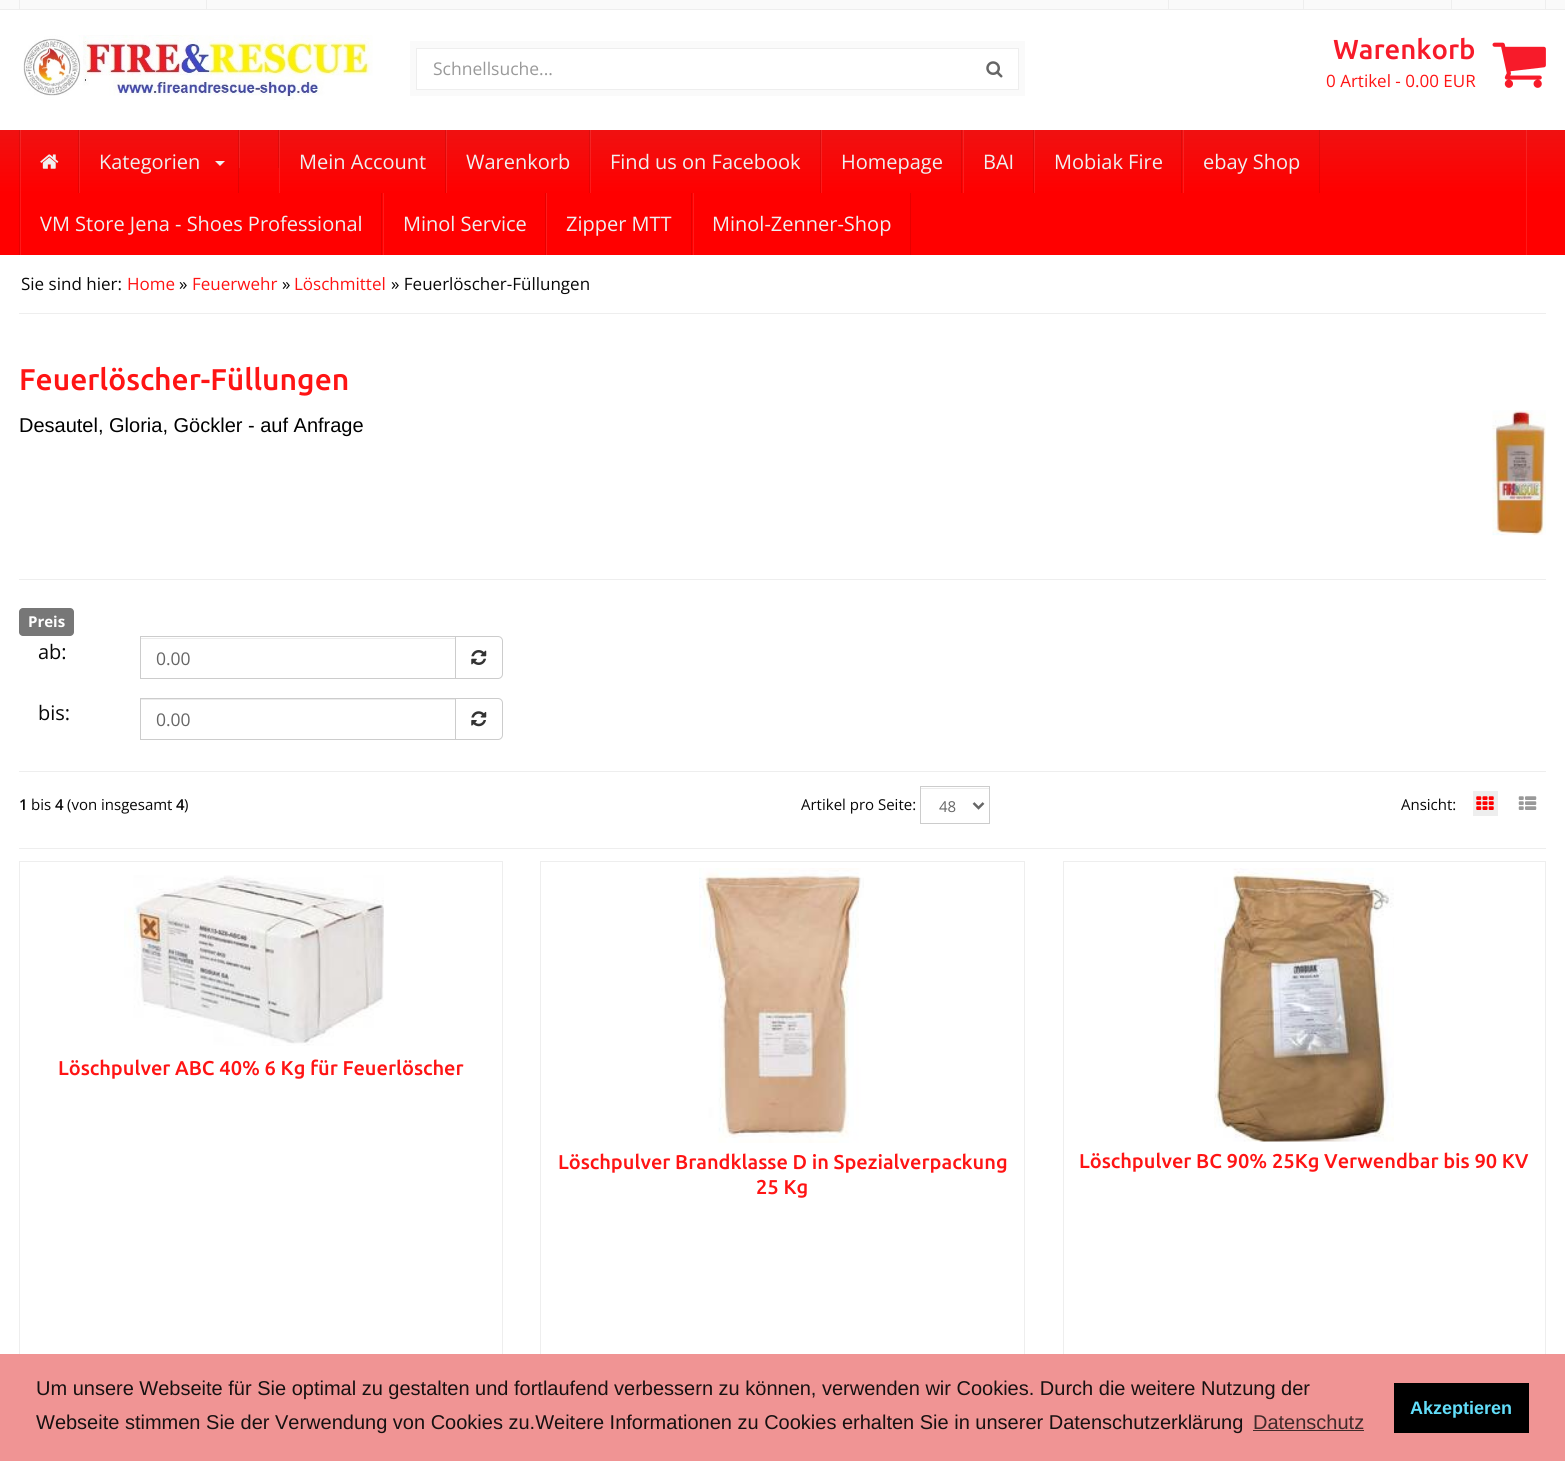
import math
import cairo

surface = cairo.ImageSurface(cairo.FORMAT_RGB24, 1565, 1461)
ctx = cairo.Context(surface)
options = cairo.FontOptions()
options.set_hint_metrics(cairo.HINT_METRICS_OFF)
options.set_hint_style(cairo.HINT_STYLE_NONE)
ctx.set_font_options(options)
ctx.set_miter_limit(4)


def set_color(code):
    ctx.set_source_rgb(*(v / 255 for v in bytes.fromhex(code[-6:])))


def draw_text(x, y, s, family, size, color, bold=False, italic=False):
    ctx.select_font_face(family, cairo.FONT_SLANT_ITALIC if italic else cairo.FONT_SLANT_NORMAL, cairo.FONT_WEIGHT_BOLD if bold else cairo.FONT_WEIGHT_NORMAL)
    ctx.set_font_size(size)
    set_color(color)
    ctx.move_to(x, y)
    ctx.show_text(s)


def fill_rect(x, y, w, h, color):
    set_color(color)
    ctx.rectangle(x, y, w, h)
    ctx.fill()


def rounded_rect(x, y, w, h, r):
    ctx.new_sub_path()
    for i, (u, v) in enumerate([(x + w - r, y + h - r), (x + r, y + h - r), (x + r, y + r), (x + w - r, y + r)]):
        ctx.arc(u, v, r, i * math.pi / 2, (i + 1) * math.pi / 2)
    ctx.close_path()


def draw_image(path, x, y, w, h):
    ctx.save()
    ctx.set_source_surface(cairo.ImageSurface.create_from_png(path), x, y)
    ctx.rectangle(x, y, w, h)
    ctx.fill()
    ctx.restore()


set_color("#ffffff")
ctx.paint()
fill_rect(0, 0, 1565, 9, "#fafafa")
fill_rect(0, 9, 1565, 1, "#eeeeee")
fill_rect(19, 0, 1, 9, "#eeeeee")
fill_rect(206, 0, 1, 9, "#eeeeee")
fill_rect(1168, 0, 1, 9, "#eeeeee")
fill_rect(1303, 0, 1, 9, "#eeeeee")
fill_rect(1451, 0, 1, 9, "#eeeeee")
fill_rect(1545, 0, 1, 9, "#eeeeee")
draw_image("assets/img1.png", 23, 35, 350, 65)
fill_rect(410, 41, 615, 55, "#fafafa")
set_color("#ffffff")
ctx.rectangle(970.5, 48.5, 48, 41)
ctx.fill_preserve()
set_color("#eeeeee")
ctx.set_line_width(1)
ctx.stroke()
fill_rect(417, 49, 554, 40, "#ffffff")
fill_rect(416, 48, 555, 1, "#eeeeee")
fill_rect(416, 89, 555, 1, "#eeeeee")
fill_rect(416, 48, 1, 42, "#eeeeee")
draw_text(433, 75, "Schnellsuche...", "Open Sans", 17.5, "#999999")
draw_image("assets/img2.png", 986, 61, 17, 17)
draw_text(1333, 59, "Warenkorb", "Ubuntu Medium", 27.5, "#f71b2a")
draw_image("assets/img3.png", 1492, 42, 54, 46)
draw_text(1326, 87, "0 Artikel - 0.00 EUR", "Open Sans", 17, "#ff1414")
gradient = cairo.LinearGradient(783, 130, 783, 255)
gradient.add_color_stop_rgba(0, 0.941, 0.067, 0.067, 1)
gradient.add_color_stop_rgba(0.5, 1, 0, 0, 1)
ctx.set_source(gradient)
ctx.rectangle(0, 130, 1565, 125)
ctx.fill()
ctx.set_source_rgba(1, 1, 1, 0.1)
ctx.rectangle(1526, 130, 1, 125)
ctx.fill()
ctx.set_source_rgba(0, 0, 0, 0.1)
ctx.rectangle(19, 130, 1, 125)
ctx.fill()
ctx.rectangle(78, 130, 1, 63)
ctx.fill()
ctx.set_source_rgba(1, 1, 1, 0.1)
ctx.rectangle(20, 130, 1, 63)
ctx.fill()
draw_image("assets/img4.png", 40, 154, 19, 15)
ctx.set_source_rgba(0, 0, 0, 0.1)
ctx.rectangle(238, 130, 1, 63)
ctx.fill()
ctx.set_source_rgba(1, 1, 1, 0.1)
ctx.rectangle(79, 130, 1, 63)
ctx.fill()
draw_text(99, 169, "Kategorien", "Open Sans", 20, "#f0f0f0")
ctx.new_path()
ctx.move_to(215, 161)
ctx.line_to(225, 161)
ctx.line_to(220, 166)
ctx.close_path()
ctx.fill()
ctx.set_source_rgba(0, 0, 0, 0.1)
ctx.rectangle(278, 130, 1, 38)
ctx.fill()
ctx.set_source_rgba(1, 1, 1, 0.1)
ctx.rectangle(239, 130, 1, 38)
ctx.fill()
ctx.set_source_rgba(0, 0, 0, 0.1)
ctx.rectangle(445, 130, 1, 63)
ctx.fill()
ctx.set_source_rgba(1, 1, 1, 0.1)
ctx.rectangle(279, 130, 1, 63)
ctx.fill()
draw_text(299, 169, "Mein Account", "Open Sans", 20, "#f0f0f0")
ctx.set_source_rgba(0, 0, 0, 0.1)
ctx.rectangle(589, 130, 1, 63)
ctx.fill()
ctx.set_source_rgba(1, 1, 1, 0.1)
ctx.rectangle(446, 130, 1, 63)
ctx.fill()
draw_text(466, 169, "Warenkorb", "Open Sans", 20, "#f0f0f0")
ctx.set_source_rgba(0, 0, 0, 0.1)
ctx.rectangle(820, 130, 1, 63)
ctx.fill()
ctx.set_source_rgba(1, 1, 1, 0.1)
ctx.rectangle(590, 130, 1, 63)
ctx.fill()
draw_text(610, 169, "Find us on Facebook", "Open Sans", 20, "#f0f0f0")
ctx.set_source_rgba(0, 0, 0, 0.1)
ctx.rectangle(961, 130, 1, 63)
ctx.fill()
ctx.set_source_rgba(1, 1, 1, 0.1)
ctx.rectangle(821, 130, 1, 63)
ctx.fill()
draw_text(841, 169, "Homepage", "Open Sans", 20, "#f0f0f0")
ctx.set_source_rgba(0, 0, 0, 0.1)
ctx.rectangle(1033, 130, 1, 63)
ctx.fill()
ctx.set_source_rgba(1, 1, 1, 0.1)
ctx.rectangle(963, 130, 1, 63)
ctx.fill()
draw_text(983, 169, "BAI", "Open Sans", 20, "#f0f0f0")
ctx.set_source_rgba(0, 0, 0, 0.1)
ctx.rectangle(1181, 130, 1, 63)
ctx.fill()
ctx.set_source_rgba(1, 1, 1, 0.1)
ctx.rectangle(1034, 130, 1, 63)
ctx.fill()
draw_text(1054, 169, "Mobiak Fire", "Open Sans", 20, "#f0f0f0")
ctx.set_source_rgba(0, 0, 0, 0.1)
ctx.rectangle(1319, 130, 1, 63)
ctx.fill()
ctx.set_source_rgba(1, 1, 1, 0.1)
ctx.rectangle(1183, 130, 1, 63)
ctx.fill()
draw_text(1203, 169, "ebay Shop", "Open Sans", 20, "#f0f0f0")
fill_rect(381, 193, 1, 62, "#e60000")
fill_rect(20, 193, 1, 62, "#ff1a1a")
draw_text(40, 231, "VM Store Jena - Shoes Professional", "Open Sans", 20, "#f0f0f0")
fill_rect(545, 193, 1, 62, "#e60000")
fill_rect(383, 193, 1, 62, "#ff1a1a")
draw_text(403, 231, "Minol Service", "Open Sans", 20, "#f0f0f0")
fill_rect(691, 193, 1, 62, "#e60000")
fill_rect(546, 193, 1, 62, "#ff1a1a")
draw_text(566, 231, "Zipper MTT", "Open Sans", 20, "#f0f0f0")
fill_rect(910, 193, 1, 62, "#e60000")
fill_rect(693, 193, 1, 62, "#ff1a1a")
draw_text(712, 231, "Minol-Zenner-Shop", "Open Sans", 20, "#f0f0f0")
fill_rect(19, 313, 1527, 1, "#eeeeee")
draw_text(21, 290, "Sie sind hier:", "Open Sans", 17, "#080808")
draw_text(127, 290, "Home", "Open Sans", 17, "#ff1414")
draw_text(179, 290, "»", "Open Sans", 17, "#080808")
draw_text(192, 290, "Feuerwehr", "Open Sans", 17, "#ff1414")
draw_text(282, 290, "»", "Open Sans", 17, "#080808")
draw_text(294, 290, "Löschmittel", "Open Sans", 17, "#ff1414")
draw_text(391, 290, "» Feuerlöscher-Füllungen", "Open Sans", 17, "#080808")
draw_text(19, 390, "Feuerlöscher-Füllungen", "Ubuntu Medium", 30, "#ff1414")
draw_text(19, 432, "Desautel, Gloria, Göckler - auf Anfrage", "Liberation Sans", 20, "#000000")
draw_image("assets/img5.png", 1492, 410, 54, 126)
fill_rect(19, 579, 1527, 1, "#eeeeee")
set_color("#777777")
rounded_rect(19, 608, 55, 28, 4)
ctx.fill()
draw_text(28, 627, "Preis", "Open Sans", 15, "#ffffff", bold=True)
draw_text(38, 659, "ab:", "Open Sans", 20, "#080808")
fill_rect(141, 638, 314, 1, "#ececec")
ctx.new_path()
ctx.move_to(455.5, 636.5)
ctx.line_to(498, 636.5)
ctx.curve_to(500.5, 636.5, 502.5, 638.5, 502.5, 641)
ctx.line_to(502.5, 674)
ctx.curve_to(502.5, 676.5, 500.5, 678.5, 498, 678.5)
ctx.line_to(455.5, 678.5)
ctx.close_path()
set_color("#cccccc")
ctx.stroke()
ctx.rectangle(140.5, 636.5, 315, 42)
ctx.stroke()
draw_text(156, 665, "0.00", "Open Sans", 17.5, "#666666")
draw_image("assets/img6.png", 471, 650, 16, 15)
draw_text(38, 720, "bis:", "Open Sans", 20, "#080808")
fill_rect(141, 699, 314, 1, "#ececec")
ctx.new_path()
ctx.move_to(455.5, 698.5)
ctx.line_to(498, 698.5)
ctx.curve_to(500.5, 698.5, 502.5, 700.5, 502.5, 703)
ctx.line_to(502.5, 735)
ctx.curve_to(502.5, 737.5, 500.5, 739.5, 498, 739.5)
ctx.line_to(455.5, 739.5)
ctx.close_path()
set_color("#cccccc")
ctx.stroke()
ctx.rectangle(140.5, 698.5, 315, 41)
ctx.stroke()
draw_text(156, 726, "0.00", "Open Sans", 17.5, "#666666")
draw_image("assets/img7.png", 471, 711, 16, 16)
fill_rect(19, 771, 1527, 1, "#eeeeee")
fill_rect(19, 848, 1527, 1, "#eeeeee")
draw_text(19, 810, "1", "Open Sans SemiBold", 15, "#080808")
draw_text(31, 810, "bis", "Open Sans", 15, "#080808")
draw_text(55, 810, "4", "Open Sans SemiBold", 15, "#080808")
draw_text(67, 810, "(von insgesamt", "Open Sans", 15, "#080808")
draw_text(176, 810, "4", "Open Sans SemiBold", 15, "#080808")
draw_text(184, 810, ")", "Open Sans", 15, "#080808")
draw_text(801, 810, "Artikel pro Seite:", "Open Sans", 15, "#080808")
fill_rect(921, 788, 68, 1, "#ececec")
ctx.rectangle(920.5, 786.5, 69, 37)
set_color("#cccccc")
ctx.stroke()
ctx.new_path()
ctx.move_to(973.5, 803)
ctx.line_to(978.5, 808)
ctx.line_to(983.5, 803)
set_color("#666666")
ctx.set_line_width(2.5)
ctx.stroke()
draw_text(939, 812, "48", "Open Sans", 15, "#666666")
draw_text(1401, 810, "Ansicht:", "Open Sans", 15, "#080808")
fill_rect(1473, 791, 25, 25, "#eeeeee")
draw_image("assets/img8.png", 1476, 796, 18, 14)
draw_image("assets/img9.png", 1518, 796, 19, 14)
ctx.rectangle(19.5, 861.5, 483, 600)
ctx.set_line_width(1)
ctx.stroke()
draw_image("assets/img10.png", 124, 875, 260, 171)
draw_text(58, 1075, "Löschpulver ABC 40% 6 Kg für Feuerlöscher", "Ubuntu Medium", 20, "#ff1414")
ctx.rectangle(540.5, 861.5, 484, 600)
set_color("#eeeeee")
ctx.stroke()
draw_image("assets/img11.png", 699, 868, 165, 275)
draw_text(558, 1169, "Löschpulver Brandklasse D in Spezialverpackung", "Ubuntu Medium", 20, "#ff1414")
draw_text(756, 1194, "25 Kg", "Ubuntu Medium", 20, "#ff1414")
ctx.rectangle(1063.5, 861.5, 482, 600)
set_color("#eeeeee")
ctx.stroke()
draw_image("assets/img12.png", 1214, 868, 180, 274)
draw_text(1079, 1168, "Löschpulver BC 90% 25Kg Verwendbar bis 90 KV", "Ubuntu Medium", 20, "#ff1414")
fill_rect(0, 1354, 1565, 107, "#f09494")
draw_text(36, 1395, "Um unsere Webseite für Sie optimal zu gestalten und fortlaufend verbessern zu können, verwenden wir Cookies. Durch die weitere Nutzung der", "Liberation Sans", 20, "#171111")
draw_text(36, 1429, "Webseite stimmen Sie der Verwendung von Cookies zu.Weitere Informationen zu Cookies erhalten Sie in unserer Datenschutzerklärung", "Liberation Sans", 20, "#171111")
draw_text(1253, 1429, "Datenschutz", "Liberation Sans", 20, "#422b2b")
fill_rect(1253, 1430, 111, 1, "#422b2b")
fill_rect(1394, 1383, 135, 50, "#000000")
draw_text(1410, 1414, "Akzeptieren", "Liberation Sans", 18, "#62defa", bold=True)
surface.write_to_png("output.png")
